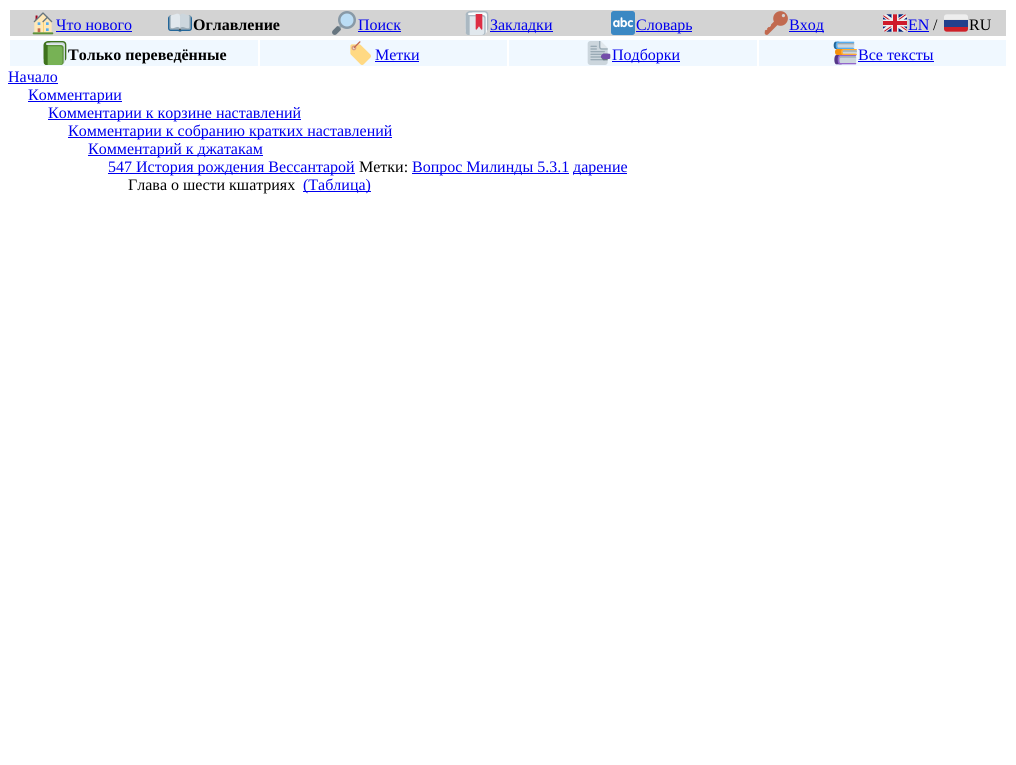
import math
import cairo

surface = cairo.ImageSurface(cairo.FORMAT_RGB24, 1016, 765)
ctx = cairo.Context(surface)
options = cairo.FontOptions()
options.set_hint_metrics(cairo.HINT_METRICS_OFF)
options.set_hint_style(cairo.HINT_STYLE_NONE)
ctx.set_font_options(options)
ctx.set_miter_limit(4)


def set_color(code):
    ctx.set_source_rgb(*(v / 255 for v in bytes.fromhex(code[-6:])))


def draw_text(x, y, s, family, size, color, bold=False, italic=False):
    ctx.select_font_face(family, cairo.FONT_SLANT_ITALIC if italic else cairo.FONT_SLANT_NORMAL, cairo.FONT_WEIGHT_BOLD if bold else cairo.FONT_WEIGHT_NORMAL)
    ctx.set_font_size(size)
    set_color(color)
    ctx.move_to(x, y)
    ctx.show_text(s)


def fill_rect(x, y, w, h, color):
    set_color(color)
    ctx.rectangle(x, y, w, h)
    ctx.fill()


def draw_image(path, x, y, w, h):
    ctx.save()
    ctx.set_source_surface(cairo.ImageSurface.create_from_png(path), x, y)
    ctx.rectangle(x, y, w, h)
    ctx.fill()
    ctx.restore()


set_color("#ffffff")
ctx.paint()
fill_rect(10, 10, 996, 26, "#d3d3d3")
draw_image("assets/img1.png", 32, 12, 22, 23)
draw_text(56, 30, "Что нового", "Liberation Serif", 16, "#0000ee")
fill_rect(56, 31, 76, 1, "#0000ee")
draw_image("assets/img2.png", 168, 13, 24, 19)
draw_text(193, 30, "Оглавление", "Liberation Serif", 16, "#000000", bold=True)
draw_image("assets/img3.png", 332, 11, 24, 24)
draw_text(358, 30, "Поиск", "Liberation Serif", 16, "#0000ee")
fill_rect(358, 31, 43, 1, "#0000ee")
draw_image("assets/img4.png", 465, 11, 24, 24)
fill_rect(490, 31, 63, 1, "#0000ee")
draw_text(490, 30, "Закладки", "Liberation Serif", 16, "#0000ee")
draw_image("assets/img5.png", 611, 11, 24, 24)
fill_rect(636, 31, 56, 1, "#0000ee")
draw_text(636, 30, "Словарь", "Liberation Serif", 16, "#0000ee")
draw_image("assets/img6.png", 764, 11, 24, 24)
fill_rect(789, 31, 35, 1, "#0000ee")
draw_text(789, 30, "Вход", "Liberation Serif", 16, "#0000ee")
draw_image("assets/img7.png", 883, 14, 24, 18)
draw_text(908, 30, "EN", "Liberation Serif", 16, "#0000ee")
fill_rect(908, 31, 21, 1, "#0000ee")
draw_text(933, 30, "/", "Liberation Serif", 16, "#000000")
draw_image("assets/img8.png", 944, 14, 24, 18)
draw_text(969, 30, "RU", "Liberation Serif", 16, "#000000")
fill_rect(10, 40, 248, 26, "#f0f8ff")
draw_image("assets/img9.png", 43, 41, 24, 24)
draw_text(68, 60, "Только переведённые", "Liberation Serif", 16, "#000000", bold=True)
fill_rect(260, 40, 247, 26, "#f0f8ff")
draw_image("assets/img10.png", 350, 41, 21, 24)
draw_text(375, 60, "Метки", "Liberation Serif", 16, "#0000ee")
fill_rect(375, 61, 44, 1, "#0000ee")
fill_rect(509, 40, 248, 26, "#f0f8ff")
draw_image("assets/img11.png", 587, 41, 24, 24)
fill_rect(612, 61, 68, 1, "#0000ee")
draw_text(612, 60, "Подборки", "Liberation Serif", 16, "#0000ee")
fill_rect(759, 40, 247, 26, "#f0f8ff")
draw_image("assets/img12.png", 833, 41, 24, 24)
draw_text(858, 60, "Все тексты", "Liberation Serif", 16, "#0000ee")
fill_rect(858, 61, 76, 1, "#0000ee")
draw_text(8, 82, "Начало", "Liberation Serif", 16, "#0000ee")
fill_rect(8, 83, 50, 1, "#0000ee")
fill_rect(28, 101, 94, 1, "#0000ee")
draw_text(28, 100, "Комментарии", "Liberation Serif", 16, "#0000ee")
fill_rect(48, 119, 253, 1, "#0000ee")
draw_text(48, 118, "Комментарии к корзине наставлений", "Liberation Serif", 16, "#0000ee")
fill_rect(68, 137, 324, 1, "#0000ee")
draw_text(68, 136, "Комментарии к собранию кратких наставлений", "Liberation Serif", 16, "#0000ee")
fill_rect(88, 155, 175, 1, "#0000ee")
draw_text(88, 154, "Комментарий к джатакам", "Liberation Serif", 16, "#0000ee")
fill_rect(108, 173, 247, 1, "#0000ee")
draw_text(108, 172, "547 История рождения Вессантарой", "Liberation Serif", 16, "#0000ee")
draw_text(359, 172, "Метки:", "Liberation Serif", 16, "#000000")
fill_rect(412, 173, 157, 1, "#0000ee")
draw_text(412, 172, "Вопрос Милинды 5.3.1", "Liberation Serif", 16, "#0000ee")
fill_rect(573, 173, 54, 1, "#0000ee")
draw_text(573, 172, "дарение", "Liberation Serif", 16, "#0000ee")
draw_text(128, 190, "Глава о шести кшатриях", "Liberation Serif", 16, "#000000")
fill_rect(303, 191, 68, 1, "#0000ee")
draw_text(303, 190, "(Таблица)", "Liberation Serif", 16, "#0000ee")
surface.write_to_png("output.png")
